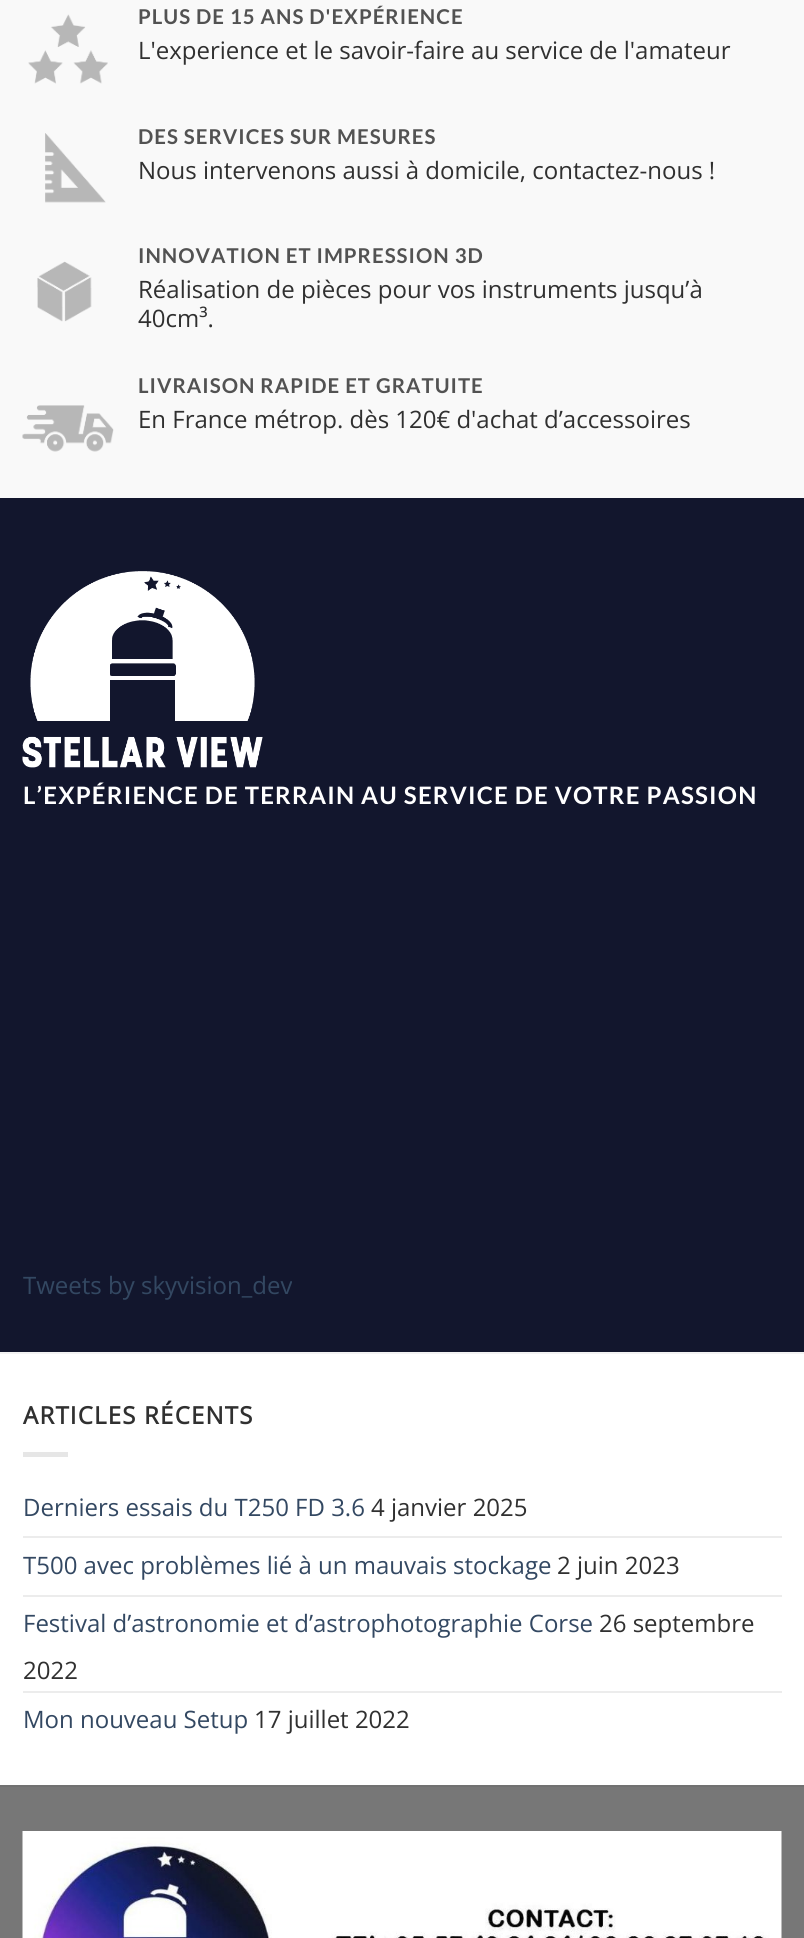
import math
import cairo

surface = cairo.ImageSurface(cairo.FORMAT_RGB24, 804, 1938)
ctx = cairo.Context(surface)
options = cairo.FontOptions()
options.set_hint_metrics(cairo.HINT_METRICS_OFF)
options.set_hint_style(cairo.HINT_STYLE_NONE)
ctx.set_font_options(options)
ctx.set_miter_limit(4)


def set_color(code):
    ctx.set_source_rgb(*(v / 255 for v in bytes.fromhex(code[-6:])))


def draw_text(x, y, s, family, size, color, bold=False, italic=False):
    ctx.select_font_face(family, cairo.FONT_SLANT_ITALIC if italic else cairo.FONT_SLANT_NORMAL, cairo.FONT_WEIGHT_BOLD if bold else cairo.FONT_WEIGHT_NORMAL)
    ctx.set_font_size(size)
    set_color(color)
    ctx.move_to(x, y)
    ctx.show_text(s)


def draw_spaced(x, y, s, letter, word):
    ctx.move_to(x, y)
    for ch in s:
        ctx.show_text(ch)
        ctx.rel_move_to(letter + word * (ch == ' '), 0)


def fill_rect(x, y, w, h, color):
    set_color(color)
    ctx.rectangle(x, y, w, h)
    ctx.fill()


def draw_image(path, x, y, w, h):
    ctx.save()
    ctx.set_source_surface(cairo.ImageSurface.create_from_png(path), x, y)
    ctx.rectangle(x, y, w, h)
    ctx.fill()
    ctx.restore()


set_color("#ffffff")
ctx.paint()
fill_rect(0, 0, 804, 498, "#f9f9f9")
draw_image("assets/img1.png", 28, 14, 80, 70)
ctx.select_font_face("Lato", cairo.FONT_SLANT_NORMAL, cairo.FONT_WEIGHT_BOLD)
ctx.set_font_size(20.4)
set_color("#525252")
draw_spaced(138, 24, "PLUS DE 15 ANS D'EXPÉRIENCE", 1, 0)
draw_text(138, 59, "L'experience et le savoir-faire au service de l'amateur", "Open Sans", 24, "#303030")
draw_image("assets/img2.png", 45, 133, 61, 70)
ctx.select_font_face("Lato", cairo.FONT_SLANT_NORMAL, cairo.FONT_WEIGHT_BOLD)
ctx.set_font_size(20.4)
set_color("#525252")
draw_spaced(138, 144, "DES SERVICES SUR MESURES", 1, 0)
draw_text(138, 179, "Nous intervenons aussi à domicile, contactez-nous !", "Open Sans", 24, "#303030")
draw_image("assets/img3.png", 37, 261, 55, 61)
ctx.select_font_face("Lato", cairo.FONT_SLANT_NORMAL, cairo.FONT_WEIGHT_BOLD)
ctx.set_font_size(20.4)
set_color("#525252")
draw_spaced(138, 263, "INNOVATION ET IMPRESSION 3D", 1, 0)
draw_text(138, 298, "Réalisation de pièces pour vos instruments jusqu’à", "Open Sans", 24, "#303030")
draw_text(138, 327, "40cm³.", "Open Sans", 24, "#303030")
draw_image("assets/img4.png", 22, 405, 92, 47)
ctx.select_font_face("Lato", cairo.FONT_SLANT_NORMAL, cairo.FONT_WEIGHT_BOLD)
ctx.set_font_size(20.4)
set_color("#525252")
draw_spaced(138, 393, "LIVRAISON RAPIDE ET GRATUITE", 1, 0)
draw_text(138, 428, "En France métrop. dès 120€ d'achat d’accessoires", "Open Sans", 24, "#303030")
fill_rect(0, 498, 804, 854, "#12162d")
draw_image("assets/img5.png", 22, 571, 241, 197)
ctx.select_font_face("Lato", cairo.FONT_SLANT_NORMAL, cairo.FONT_WEIGHT_BOLD)
set_color("#ffffff")
draw_spaced(23, 804, "L’EXPÉRIENCE DE TERRAIN AU SERVICE DE VOTRE PASSION", 1.2, 0)
draw_text(23, 1294, "Tweets by skyvision_dev", "Open Sans", 24, "#334862")
fill_rect(0, 1352, 804, 2, "#f2f2f2")
ctx.select_font_face("Open Sans", cairo.FONT_SLANT_NORMAL, cairo.FONT_WEIGHT_BOLD)
set_color("#303030")
draw_spaced(23, 1424, "ARTICLES RÉCENTS", 1.2, 0)
fill_rect(23, 1452, 45, 5, "#e6e6e6")
draw_text(23, 1516, "Derniers essais du T250 FD 3.6", "Open Sans", 24, "#334862")
draw_text(371, 1516, "4 janvier 2025", "Open Sans", 24, "#303030")
fill_rect(23, 1536, 759, 2, "#ececec")
draw_text(23, 1574, "T500 avec problèmes lié à un mauvais stockage", "Open Sans", 24, "#334862")
draw_text(557, 1574, "2 juin 2023", "Open Sans", 24, "#303030")
fill_rect(23, 1595, 759, 2, "#ececec")
draw_text(23, 1632, "Festival d’astronomie et d’astrophotographie Corse", "Open Sans", 24, "#334862")
draw_text(599, 1632, "26 septembre", "Open Sans", 24, "#303030")
draw_text(23, 1679, "2022", "Open Sans", 24, "#303030")
fill_rect(23, 1691, 759, 2, "#ececec")
draw_text(23, 1728, "Mon nouveau Setup", "Open Sans", 24, "#334862")
draw_text(254, 1728, "17 juillet 2022", "Open Sans", 24, "#303030")
fill_rect(0, 1787, 804, 151, "#777777")
fill_rect(0, 1785, 804, 2, "#717171")
draw_image("assets/img6.png", 22, 1831, 760, 107)
surface.write_to_png("output.png")
